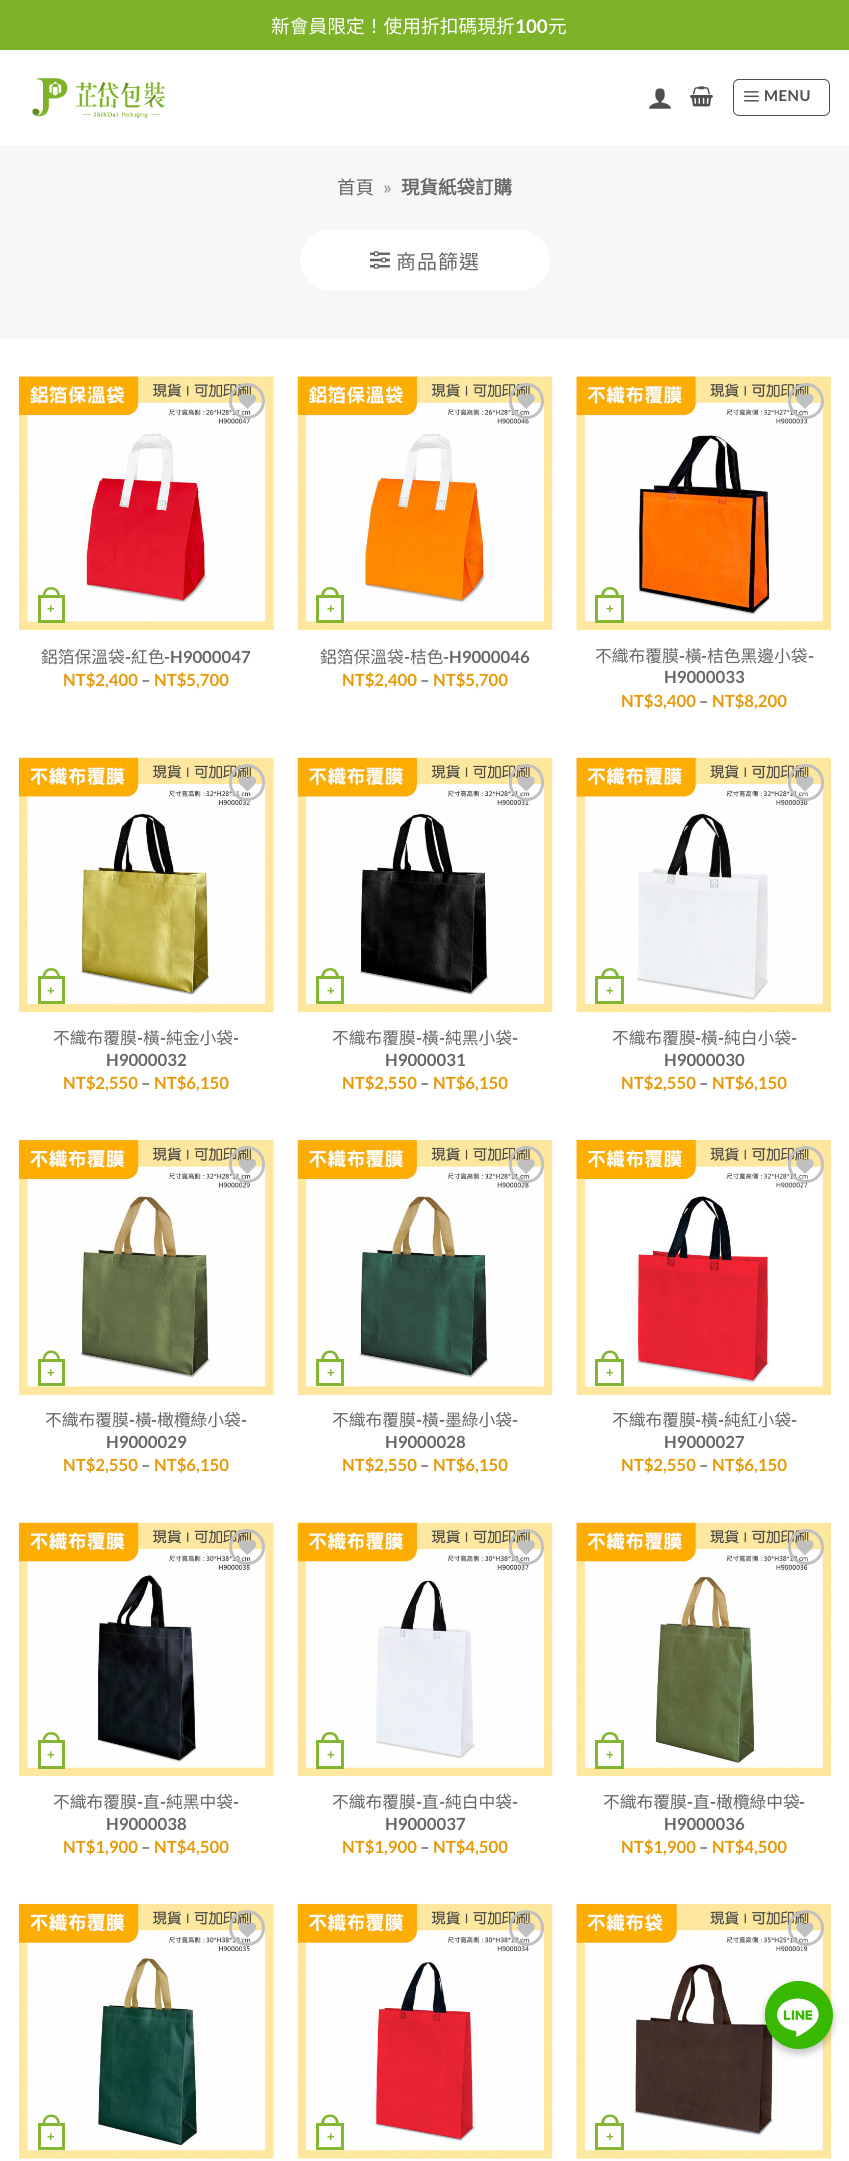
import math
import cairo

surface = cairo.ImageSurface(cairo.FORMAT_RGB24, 849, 2161)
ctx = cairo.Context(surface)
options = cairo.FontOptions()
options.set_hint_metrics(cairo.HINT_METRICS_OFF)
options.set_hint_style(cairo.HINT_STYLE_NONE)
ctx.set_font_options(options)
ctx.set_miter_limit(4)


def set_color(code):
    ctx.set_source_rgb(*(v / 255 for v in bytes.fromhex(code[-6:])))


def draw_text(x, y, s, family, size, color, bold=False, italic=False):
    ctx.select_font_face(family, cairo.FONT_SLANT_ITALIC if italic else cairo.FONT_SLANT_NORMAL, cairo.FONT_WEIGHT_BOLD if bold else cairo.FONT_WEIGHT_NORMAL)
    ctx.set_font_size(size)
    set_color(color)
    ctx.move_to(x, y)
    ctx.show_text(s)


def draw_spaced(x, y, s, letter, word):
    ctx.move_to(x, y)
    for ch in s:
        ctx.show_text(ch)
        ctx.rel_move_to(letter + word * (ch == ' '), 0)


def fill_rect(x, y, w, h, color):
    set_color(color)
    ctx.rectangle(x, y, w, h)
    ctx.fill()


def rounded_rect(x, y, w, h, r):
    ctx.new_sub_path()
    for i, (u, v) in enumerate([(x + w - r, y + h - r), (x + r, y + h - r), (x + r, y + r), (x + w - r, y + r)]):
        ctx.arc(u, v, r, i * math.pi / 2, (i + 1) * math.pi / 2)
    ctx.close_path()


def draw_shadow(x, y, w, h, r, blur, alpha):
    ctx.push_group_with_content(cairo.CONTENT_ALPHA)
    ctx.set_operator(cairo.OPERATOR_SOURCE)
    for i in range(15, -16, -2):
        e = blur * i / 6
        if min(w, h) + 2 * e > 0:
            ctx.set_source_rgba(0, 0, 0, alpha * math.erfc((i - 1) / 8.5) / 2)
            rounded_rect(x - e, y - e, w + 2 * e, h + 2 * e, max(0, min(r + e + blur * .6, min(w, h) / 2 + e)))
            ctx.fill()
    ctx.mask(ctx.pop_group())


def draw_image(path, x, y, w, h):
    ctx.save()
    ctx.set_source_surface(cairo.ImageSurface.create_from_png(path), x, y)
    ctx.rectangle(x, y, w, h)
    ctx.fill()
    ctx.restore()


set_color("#ffffff")
ctx.paint()
fill_rect(0, 0, 849, 50, "#7eb229")
draw_text(271, 33, "新會員限定！使用折扣碼現折", "Noto Sans CJK TC", 18.75, "#ffffff")
draw_text(515, 33, "100", "Lato", 18.75, "#ffffff", bold=True)
draw_text(548, 33, "元", "Noto Sans CJK TC", 18.75, "#ffffff")
draw_image("assets/img1.png", 32, 78, 133, 40)
draw_image("assets/img2.png", 649, 88, 22, 21)
draw_image("assets/img3.png", 690, 86, 23, 21)
rounded_rect(733.5, 79.5, 96, 36, 5.5)
set_color("#4f4f4f")
ctx.set_line_width(1)
ctx.stroke()
draw_image("assets/img4.png", 744, 91, 15, 11)
ctx.select_font_face("Lato", cairo.FONT_SLANT_NORMAL, cairo.FONT_WEIGHT_BOLD)
ctx.set_font_size(15)
draw_spaced(764, 101, "MENU", 0.5, 0)
fill_rect(0, 145, 849, 194, "#f7f7f7")
draw_text(337, 194, "首頁", "Noto Sans CJK TC", 18.5, "#666666")
draw_text(383, 194, "»", "Lato", 18.5, "#a0a0a0", bold=True)
draw_text(401, 194, "現貨紙袋訂購", "Noto Sans CJK TC", 18.5, "#666666", bold=True)
set_color("#ffffff")
rounded_rect(300, 230, 250, 61, 30.5)
ctx.fill()
draw_image("assets/img5.png", 370, 251, 20, 18)
ctx.select_font_face("Noto Sans CJK TC")
ctx.set_font_size(20)
set_color("#666666")
draw_spaced(396, 269, "商品篩選", 1, 0)
draw_image("assets/img6.png", 18, 376, 256, 254)
ctx.arc(247, 401, 16.5, 0, 2 * math.pi)
set_color("#c0c0c0")
ctx.set_line_width(3)
ctx.stroke()
draw_image("assets/img7.png", 238, 393, 18, 16)
ctx.rectangle(39.5, 596.5, 24, 25)
ctx.set_source_rgba(0.494, 0.698, 0.161, 0.95)
ctx.stroke()
set_color("#84b634")
ctx.set_fill_rule(cairo.FILL_RULE_EVEN_ODD)
ctx.new_path()
ctx.move_to(51, 587)
ctx.curve_to(57, 587, 60, 591.5, 60, 597)
ctx.line_to(42.5, 597)
ctx.curve_to(42.5, 591.5, 45.5, 587, 51, 587)
ctx.close_path()
ctx.move_to(51, 589.5)
ctx.curve_to(55.5, 589.5, 57.5, 593, 57.5, 597)
ctx.line_to(45, 597)
ctx.curve_to(45, 593, 47, 589.5, 51, 589.5)
ctx.close_path()
ctx.fill()
draw_text(47, 613, "+", "Liberation Sans", 13, "#84b634", bold=True)
draw_text(41, 663, "鋁箔保溫袋", "Noto Sans CJK TC", 16.75, "#666666")
draw_text(125, 663, "-", "Lato", 16.75, "#666666", bold=True)
draw_text(131, 663, "紅色", "Noto Sans CJK TC", 16.75, "#666666")
draw_text(164, 663, "-H9000047", "Lato", 16.75, "#666666", bold=True)
draw_text(63, 686, "NT$2,400", "Lato", 16.75, "#e69a0a", bold=True)
draw_text(141, 686, "–", "Lato", 16.75, "#666666", bold=True)
draw_text(154, 686, "NT$5,700", "Lato", 16.75, "#e69a0a", bold=True)
draw_image("assets/img8.png", 297, 376, 256, 254)
rounded_rect(510.5, 384.5, 32, 33, 16)
set_color("#c0c0c0")
ctx.stroke()
draw_image("assets/img9.png", 517, 393, 18, 16)
ctx.rectangle(317.5, 596.5, 25, 25)
ctx.set_source_rgba(0.494, 0.698, 0.161, 0.95)
ctx.stroke()
set_color("#84b634")
ctx.new_path()
ctx.move_to(330, 587)
ctx.curve_to(336, 587, 339, 591.5, 339, 597)
ctx.line_to(321, 597)
ctx.curve_to(321, 591.5, 324, 587, 330, 587)
ctx.close_path()
ctx.move_to(330, 589.5)
ctx.curve_to(334.5, 589.5, 336, 593, 336, 597)
ctx.line_to(324, 597)
ctx.curve_to(324, 593, 325.5, 589.5, 330, 589.5)
ctx.close_path()
ctx.fill()
draw_text(327, 613, "+", "Liberation Sans", 13, "#84b634", bold=True)
draw_text(320, 663, "鋁箔保溫袋", "Noto Sans CJK TC", 16.75, "#666666")
draw_text(404, 663, "-", "Lato", 16.75, "#666666", bold=True)
draw_text(410, 663, "桔色", "Noto Sans CJK TC", 16.75, "#666666")
draw_text(443, 663, "-H9000046", "Lato", 16.75, "#666666", bold=True)
draw_text(342, 686, "NT$2,400", "Lato", 16.75, "#e69a0a", bold=True)
draw_text(420, 686, "–", "Lato", 16.75, "#666666", bold=True)
draw_text(433, 686, "NT$5,700", "Lato", 16.75, "#e69a0a", bold=True)
draw_image("assets/img10.png", 576, 376, 256, 254)
ctx.arc(806, 401, 16.5, 0, 2 * math.pi)
set_color("#c0c0c0")
ctx.stroke()
draw_image("assets/img11.png", 796, 393, 18, 16)
ctx.rectangle(596.5, 596.5, 26, 25)
ctx.set_source_rgba(0.494, 0.698, 0.161, 0.95)
ctx.stroke()
set_color("#84b634")
ctx.new_path()
ctx.move_to(610, 587)
ctx.curve_to(616, 587, 619, 591.5, 619, 597)
ctx.line_to(601, 597)
ctx.curve_to(601, 591.5, 604, 587, 610, 587)
ctx.close_path()
ctx.move_to(610, 589.5)
ctx.curve_to(614.5, 589.5, 616, 593, 616, 597)
ctx.line_to(604, 597)
ctx.curve_to(604, 593, 605.5, 589.5, 610, 589.5)
ctx.close_path()
ctx.fill()
draw_text(606, 613, "+", "Liberation Sans", 13, "#84b634", bold=True)
draw_text(595, 662, "不織布覆膜", "Noto Sans CJK TC", 16.75, "#666666")
draw_text(679, 662, "-", "Lato", 16.75, "#666666", bold=True)
draw_text(685, 662, "橫", "Noto Sans CJK TC", 16.75, "#666666")
draw_text(701, 662, "-", "Lato", 16.75, "#666666", bold=True)
draw_text(707, 662, "桔色黑邊小袋", "Noto Sans CJK TC", 16.75, "#666666")
draw_text(808, 662, "-", "Lato", 16.75, "#666666", bold=True)
draw_text(664, 683, "H9000033", "Lato", 16.75, "#666666", bold=True)
draw_text(621, 707, "NT$3,400", "Lato", 16.75, "#e69a0a", bold=True)
draw_text(699, 707, "–", "Lato", 16.75, "#666666", bold=True)
draw_text(712, 707, "NT$8,200", "Lato", 16.75, "#e69a0a", bold=True)
draw_image("assets/img12.png", 18, 757, 256, 256)
rounded_rect(230.5, 765.5, 33, 34, 16.5)
set_color("#c0c0c0")
ctx.stroke()
draw_image("assets/img13.png", 238, 776, 18, 16)
ctx.rectangle(39.5, 977.5, 24, 25)
ctx.set_source_rgba(0.494, 0.698, 0.161, 0.95)
ctx.stroke()
set_color("#84b634")
ctx.new_path()
ctx.move_to(51, 968)
ctx.curve_to(57, 968, 60, 973, 60, 978)
ctx.line_to(42.5, 978)
ctx.curve_to(42.5, 973, 45.5, 968, 51, 968)
ctx.close_path()
ctx.move_to(51, 970.5)
ctx.curve_to(55.5, 970.5, 57.5, 974.5, 57.5, 978)
ctx.line_to(45, 978)
ctx.curve_to(45, 974.5, 47, 970.5, 51, 970.5)
ctx.close_path()
ctx.fill()
draw_text(47, 995, "+", "Liberation Sans", 13, "#84b634", bold=True)
draw_text(53, 1044, "不織布覆膜", "Noto Sans CJK TC", 16.75, "#666666")
draw_text(137, 1044, "-", "Lato", 16.75, "#666666", bold=True)
draw_text(143, 1044, "橫", "Noto Sans CJK TC", 16.75, "#666666")
draw_text(160, 1044, "-", "Lato", 16.75, "#666666", bold=True)
draw_text(166, 1044, "純金小袋", "Noto Sans CJK TC", 16.75, "#666666")
draw_text(233, 1044, "-", "Lato", 16.75, "#666666", bold=True)
draw_text(106, 1066, "H9000032", "Lato", 16.75, "#666666", bold=True)
draw_text(63, 1089, "NT$2,550", "Lato", 16.75, "#e69a0a", bold=True)
draw_text(141, 1089, "–", "Lato", 16.75, "#666666", bold=True)
draw_text(154, 1089, "NT$6,150", "Lato", 16.75, "#e69a0a", bold=True)
draw_image("assets/img14.png", 297, 757, 256, 256)
rounded_rect(510.5, 765.5, 32, 34, 16)
set_color("#c0c0c0")
ctx.stroke()
draw_image("assets/img15.png", 517, 776, 18, 16)
ctx.rectangle(317.5, 977.5, 25, 25)
ctx.set_source_rgba(0.494, 0.698, 0.161, 0.95)
ctx.stroke()
set_color("#84b634")
ctx.new_path()
ctx.move_to(330, 968)
ctx.curve_to(336, 968, 339, 973, 339, 978)
ctx.line_to(321, 978)
ctx.curve_to(321, 973, 324, 968, 330, 968)
ctx.close_path()
ctx.move_to(330, 970.5)
ctx.curve_to(334.5, 970.5, 336, 974.5, 336, 978)
ctx.line_to(324, 978)
ctx.curve_to(324, 974.5, 325.5, 970.5, 330, 970.5)
ctx.close_path()
ctx.fill()
draw_text(327, 995, "+", "Liberation Sans", 13, "#84b634", bold=True)
draw_text(332, 1044, "不織布覆膜", "Noto Sans CJK TC", 16.75, "#666666")
draw_text(416, 1044, "-", "Lato", 16.75, "#666666", bold=True)
draw_text(422, 1044, "橫", "Noto Sans CJK TC", 16.75, "#666666")
draw_text(439, 1044, "-", "Lato", 16.75, "#666666", bold=True)
draw_text(445, 1044, "純黑小袋", "Noto Sans CJK TC", 16.75, "#666666")
draw_text(512, 1044, "-", "Lato", 16.75, "#666666", bold=True)
draw_text(385, 1066, "H9000031", "Lato", 16.75, "#666666", bold=True)
draw_text(342, 1089, "NT$2,550", "Lato", 16.75, "#e69a0a", bold=True)
draw_text(420, 1089, "–", "Lato", 16.75, "#666666", bold=True)
draw_text(433, 1089, "NT$6,150", "Lato", 16.75, "#e69a0a", bold=True)
draw_image("assets/img16.png", 576, 757, 256, 256)
rounded_rect(789.5, 765.5, 33, 34, 16.5)
set_color("#c0c0c0")
ctx.stroke()
draw_image("assets/img17.png", 796, 776, 18, 16)
ctx.rectangle(596.5, 977.5, 26, 25)
ctx.set_source_rgba(0.494, 0.698, 0.161, 0.95)
ctx.stroke()
set_color("#84b634")
ctx.new_path()
ctx.move_to(610, 968)
ctx.curve_to(616, 968, 619, 973, 619, 978)
ctx.line_to(601, 978)
ctx.curve_to(601, 973, 604, 968, 610, 968)
ctx.close_path()
ctx.move_to(610, 970.5)
ctx.curve_to(614.5, 970.5, 616, 974.5, 616, 978)
ctx.line_to(604, 978)
ctx.curve_to(604, 974.5, 605.5, 970.5, 610, 970.5)
ctx.close_path()
ctx.fill()
draw_text(606, 995, "+", "Liberation Sans", 13, "#84b634", bold=True)
draw_text(612, 1044, "不織布覆膜", "Noto Sans CJK TC", 16.75, "#666666")
draw_text(695, 1044, "-", "Lato", 16.75, "#666666", bold=True)
draw_text(701, 1044, "橫", "Noto Sans CJK TC", 16.75, "#666666")
draw_text(718, 1044, "-", "Lato", 16.75, "#666666", bold=True)
draw_text(724, 1044, "純白小袋", "Noto Sans CJK TC", 16.75, "#666666")
draw_text(791, 1044, "-", "Lato", 16.75, "#666666", bold=True)
draw_text(664, 1066, "H9000030", "Lato", 16.75, "#666666", bold=True)
draw_text(621, 1089, "NT$2,550", "Lato", 16.75, "#e69a0a", bold=True)
draw_text(699, 1089, "–", "Lato", 16.75, "#666666", bold=True)
draw_text(712, 1089, "NT$6,150", "Lato", 16.75, "#e69a0a", bold=True)
draw_image("assets/img18.png", 18, 1140, 256, 255)
rounded_rect(230.5, 1147.5, 33, 34, 16.5)
set_color("#c0c0c0")
ctx.stroke()
draw_image("assets/img19.png", 238, 1158, 18, 16)
ctx.rectangle(39.5, 1360.5, 24, 24)
set_color("#84b634")
ctx.stroke()
ctx.new_path()
ctx.move_to(51, 1350.5)
ctx.curve_to(57, 1350.5, 60, 1355.5, 60, 1360.5)
ctx.line_to(42.5, 1360.5)
ctx.curve_to(42.5, 1355.5, 45.5, 1350.5, 51, 1350.5)
ctx.close_path()
ctx.move_to(51, 1353)
ctx.curve_to(55.5, 1353, 57.5, 1357, 57.5, 1360.5)
ctx.line_to(45, 1360.5)
ctx.curve_to(45, 1357, 47, 1353, 51, 1353)
ctx.close_path()
ctx.fill()
draw_text(47, 1377, "+", "Liberation Sans", 13, "#84b634", bold=True)
draw_text(45, 1426, "不織布覆膜", "Noto Sans CJK TC", 16.75, "#666666")
draw_text(129, 1426, "-", "Lato", 16.75, "#666666", bold=True)
draw_text(135, 1426, "橫", "Noto Sans CJK TC", 16.75, "#666666")
draw_text(151, 1426, "-", "Lato", 16.75, "#666666", bold=True)
draw_text(157, 1426, "橄欖綠小袋", "Noto Sans CJK TC", 16.75, "#666666")
draw_text(241, 1426, "-", "Lato", 16.75, "#666666", bold=True)
draw_text(106, 1448, "H9000029", "Lato", 16.75, "#666666", bold=True)
draw_text(63, 1471, "NT$2,550", "Lato", 16.75, "#e69a0a", bold=True)
draw_text(141, 1471, "–", "Lato", 16.75, "#666666", bold=True)
draw_text(154, 1471, "NT$6,150", "Lato", 16.75, "#e69a0a", bold=True)
draw_image("assets/img20.png", 297, 1140, 256, 255)
rounded_rect(510.5, 1147.5, 32, 34, 16)
set_color("#c0c0c0")
ctx.stroke()
draw_image("assets/img21.png", 517, 1158, 18, 16)
ctx.rectangle(317.5, 1360.5, 25, 24)
set_color("#84b634")
ctx.stroke()
ctx.new_path()
ctx.move_to(330, 1350.5)
ctx.curve_to(336, 1350.5, 339, 1355.5, 339, 1360.5)
ctx.line_to(321, 1360.5)
ctx.curve_to(321, 1355.5, 324, 1350.5, 330, 1350.5)
ctx.close_path()
ctx.move_to(330, 1353)
ctx.curve_to(334.5, 1353, 336, 1357, 336, 1360.5)
ctx.line_to(324, 1360.5)
ctx.curve_to(324, 1357, 325.5, 1353, 330, 1353)
ctx.close_path()
ctx.fill()
draw_text(327, 1377, "+", "Liberation Sans", 13, "#84b634", bold=True)
draw_text(332, 1426, "不織布覆膜", "Noto Sans CJK TC", 16.75, "#666666")
draw_text(416, 1426, "-", "Lato", 16.75, "#666666", bold=True)
draw_text(422, 1426, "橫", "Noto Sans CJK TC", 16.75, "#666666")
draw_text(439, 1426, "-", "Lato", 16.75, "#666666", bold=True)
draw_text(445, 1426, "墨綠小袋", "Noto Sans CJK TC", 16.75, "#666666")
draw_text(512, 1426, "-", "Lato", 16.75, "#666666", bold=True)
draw_text(385, 1448, "H9000028", "Lato", 16.75, "#666666", bold=True)
draw_text(342, 1471, "NT$2,550", "Lato", 16.75, "#e69a0a", bold=True)
draw_text(420, 1471, "–", "Lato", 16.75, "#666666", bold=True)
draw_text(433, 1471, "NT$6,150", "Lato", 16.75, "#e69a0a", bold=True)
draw_image("assets/img22.png", 576, 1140, 256, 255)
rounded_rect(789.5, 1147.5, 33, 34, 16.5)
set_color("#c0c0c0")
ctx.stroke()
draw_image("assets/img23.png", 796, 1158, 18, 16)
ctx.rectangle(596.5, 1360.5, 26, 24)
set_color("#84b634")
ctx.stroke()
ctx.new_path()
ctx.move_to(610, 1350.5)
ctx.curve_to(616, 1350.5, 619, 1355.5, 619, 1360.5)
ctx.line_to(601, 1360.5)
ctx.curve_to(601, 1355.5, 604, 1350.5, 610, 1350.5)
ctx.close_path()
ctx.move_to(610, 1353)
ctx.curve_to(614.5, 1353, 616, 1357, 616, 1360.5)
ctx.line_to(604, 1360.5)
ctx.curve_to(604, 1357, 605.5, 1353, 610, 1353)
ctx.close_path()
ctx.fill()
draw_text(606, 1377, "+", "Liberation Sans", 13, "#84b634", bold=True)
draw_text(612, 1426, "不織布覆膜", "Noto Sans CJK TC", 16.75, "#666666")
draw_text(695, 1426, "-", "Lato", 16.75, "#666666", bold=True)
draw_text(701, 1426, "橫", "Noto Sans CJK TC", 16.75, "#666666")
draw_text(718, 1426, "-", "Lato", 16.75, "#666666", bold=True)
draw_text(724, 1426, "純紅小袋", "Noto Sans CJK TC", 16.75, "#666666")
draw_text(791, 1426, "-", "Lato", 16.75, "#666666", bold=True)
draw_text(664, 1448, "H9000027", "Lato", 16.75, "#666666", bold=True)
draw_text(621, 1471, "NT$2,550", "Lato", 16.75, "#e69a0a", bold=True)
draw_text(699, 1471, "–", "Lato", 16.75, "#666666", bold=True)
draw_text(712, 1471, "NT$6,150", "Lato", 16.75, "#e69a0a", bold=True)
draw_image("assets/img24.png", 18, 1522, 256, 255)
ctx.arc(247, 1547, 16.5, 0, 2 * math.pi)
set_color("#c0c0c0")
ctx.stroke()
draw_image("assets/img25.png", 238, 1540, 18, 15)
ctx.rectangle(39.5, 1741.5, 24, 26)
ctx.set_source_rgba(0.494, 0.698, 0.161, 0.95)
ctx.stroke()
set_color("#84b634")
ctx.new_path()
ctx.move_to(51, 1732)
ctx.curve_to(57, 1732, 60, 1736.5, 60, 1742)
ctx.line_to(42.5, 1742)
ctx.curve_to(42.5, 1736.5, 45.5, 1732, 51, 1732)
ctx.close_path()
ctx.move_to(51, 1734.5)
ctx.curve_to(55.5, 1734.5, 57.5, 1738, 57.5, 1742)
ctx.line_to(45, 1742)
ctx.curve_to(45, 1738, 47, 1734.5, 51, 1734.5)
ctx.close_path()
ctx.fill()
draw_text(47, 1759, "+", "Liberation Sans", 13, "#84b634", bold=True)
draw_text(53, 1808, "不織布覆膜", "Noto Sans CJK TC", 16.75, "#666666")
draw_text(137, 1808, "-", "Lato", 16.75, "#666666", bold=True)
draw_text(143, 1808, "直", "Noto Sans CJK TC", 16.75, "#666666")
draw_text(160, 1808, "-", "Lato", 16.75, "#666666", bold=True)
draw_text(166, 1808, "純黑中袋", "Noto Sans CJK TC", 16.75, "#666666")
draw_text(233, 1808, "-", "Lato", 16.75, "#666666", bold=True)
draw_text(106, 1830, "H9000038", "Lato", 16.75, "#666666", bold=True)
draw_text(63, 1853, "NT$1,900", "Lato", 16.75, "#e69a0a", bold=True)
draw_text(141, 1853, "–", "Lato", 16.75, "#666666", bold=True)
draw_text(154, 1853, "NT$4,500", "Lato", 16.75, "#e69a0a", bold=True)
draw_image("assets/img26.png", 297, 1522, 256, 255)
rounded_rect(510.5, 1530.5, 32, 33, 16)
set_color("#c0c0c0")
ctx.stroke()
draw_image("assets/img27.png", 517, 1540, 18, 15)
ctx.rectangle(317.5, 1741.5, 25, 26)
ctx.set_source_rgba(0.494, 0.698, 0.161, 0.95)
ctx.stroke()
set_color("#84b634")
ctx.new_path()
ctx.move_to(330, 1732)
ctx.curve_to(336, 1732, 339, 1736.5, 339, 1742)
ctx.line_to(321, 1742)
ctx.curve_to(321, 1736.5, 324, 1732, 330, 1732)
ctx.close_path()
ctx.move_to(330, 1734.5)
ctx.curve_to(334.5, 1734.5, 336, 1738, 336, 1742)
ctx.line_to(324, 1742)
ctx.curve_to(324, 1738, 325.5, 1734.5, 330, 1734.5)
ctx.close_path()
ctx.fill()
draw_text(327, 1759, "+", "Liberation Sans", 13, "#84b634", bold=True)
draw_text(332, 1808, "不織布覆膜", "Noto Sans CJK TC", 16.75, "#666666")
draw_text(416, 1808, "-", "Lato", 16.75, "#666666", bold=True)
draw_text(422, 1808, "直", "Noto Sans CJK TC", 16.75, "#666666")
draw_text(439, 1808, "-", "Lato", 16.75, "#666666", bold=True)
draw_text(445, 1808, "純白中袋", "Noto Sans CJK TC", 16.75, "#666666")
draw_text(512, 1808, "-", "Lato", 16.75, "#666666", bold=True)
draw_text(385, 1830, "H9000037", "Lato", 16.75, "#666666", bold=True)
draw_text(342, 1853, "NT$1,900", "Lato", 16.75, "#e69a0a", bold=True)
draw_text(420, 1853, "–", "Lato", 16.75, "#666666", bold=True)
draw_text(433, 1853, "NT$4,500", "Lato", 16.75, "#e69a0a", bold=True)
draw_image("assets/img28.png", 576, 1522, 256, 255)
ctx.arc(806, 1547, 16.5, 0, 2 * math.pi)
set_color("#c0c0c0")
ctx.stroke()
draw_image("assets/img29.png", 796, 1540, 18, 15)
ctx.rectangle(596.5, 1741.5, 26, 26)
ctx.set_source_rgba(0.494, 0.698, 0.161, 0.95)
ctx.stroke()
set_color("#84b634")
ctx.new_path()
ctx.move_to(610, 1732)
ctx.curve_to(616, 1732, 619, 1736.5, 619, 1742)
ctx.line_to(601, 1742)
ctx.curve_to(601, 1736.5, 604, 1732, 610, 1732)
ctx.close_path()
ctx.move_to(610, 1734.5)
ctx.curve_to(614.5, 1734.5, 616, 1738, 616, 1742)
ctx.line_to(604, 1742)
ctx.curve_to(604, 1738, 605.5, 1734.5, 610, 1734.5)
ctx.close_path()
ctx.fill()
draw_text(606, 1759, "+", "Liberation Sans", 13, "#84b634", bold=True)
draw_text(603, 1808, "不織布覆膜", "Noto Sans CJK TC", 16.75, "#666666")
draw_text(687, 1808, "-", "Lato", 16.75, "#666666", bold=True)
draw_text(693, 1808, "直", "Noto Sans CJK TC", 16.75, "#666666")
draw_text(710, 1808, "-", "Lato", 16.75, "#666666", bold=True)
draw_text(716, 1808, "橄欖綠中袋", "Noto Sans CJK TC", 16.75, "#666666")
draw_text(799, 1808, "-", "Lato", 16.75, "#666666", bold=True)
draw_text(664, 1830, "H9000036", "Lato", 16.75, "#666666", bold=True)
draw_text(621, 1853, "NT$1,900", "Lato", 16.75, "#e69a0a", bold=True)
draw_text(699, 1853, "–", "Lato", 16.75, "#666666", bold=True)
draw_text(712, 1853, "NT$4,500", "Lato", 16.75, "#e69a0a", bold=True)
draw_image("assets/img30.png", 18, 1903, 256, 256)
ctx.arc(247, 1928, 16.5, 0, 2 * math.pi)
set_color("#c0c0c0")
ctx.stroke()
draw_image("assets/img31.png", 238, 1922, 18, 16)
ctx.rectangle(39.5, 2124.5, 24, 24)
ctx.set_source_rgba(0.494, 0.698, 0.161, 0.95)
ctx.stroke()
set_color("#84b634")
ctx.new_path()
ctx.move_to(51, 2114.5)
ctx.curve_to(57, 2114.5, 60, 2119, 60, 2124.5)
ctx.line_to(42.5, 2124.5)
ctx.curve_to(42.5, 2119, 45.5, 2114.5, 51, 2114.5)
ctx.close_path()
ctx.move_to(51, 2117)
ctx.curve_to(55.5, 2117, 57.5, 2120.5, 57.5, 2124.5)
ctx.line_to(45, 2124.5)
ctx.curve_to(45, 2120.5, 47, 2117, 51, 2117)
ctx.close_path()
ctx.fill()
draw_text(47, 2141, "+", "Liberation Sans", 13, "#84b634", bold=True)
draw_image("assets/img32.png", 297, 1903, 256, 256)
rounded_rect(510.5, 1911.5, 32, 33, 16)
set_color("#c0c0c0")
ctx.stroke()
draw_image("assets/img33.png", 517, 1922, 18, 16)
ctx.rectangle(317.5, 2124.5, 25, 24)
ctx.set_source_rgba(0.494, 0.698, 0.161, 0.95)
ctx.stroke()
set_color("#84b634")
ctx.new_path()
ctx.move_to(330, 2114.5)
ctx.curve_to(336, 2114.5, 339, 2119, 339, 2124.5)
ctx.line_to(321, 2124.5)
ctx.curve_to(321, 2119, 324, 2114.5, 330, 2114.5)
ctx.close_path()
ctx.move_to(330, 2117)
ctx.curve_to(334.5, 2117, 336, 2120.5, 336, 2124.5)
ctx.line_to(324, 2124.5)
ctx.curve_to(324, 2120.5, 325.5, 2117, 330, 2117)
ctx.close_path()
ctx.fill()
draw_text(327, 2141, "+", "Liberation Sans", 13, "#84b634", bold=True)
draw_image("assets/img34.png", 576, 1903, 256, 256)
ctx.arc(806, 1928, 16.5, 0, 2 * math.pi)
set_color("#c0c0c0")
ctx.stroke()
draw_image("assets/img35.png", 796, 1922, 18, 16)
ctx.rectangle(596.5, 2124.5, 26, 24)
ctx.set_source_rgba(0.494, 0.698, 0.161, 0.95)
ctx.stroke()
set_color("#84b634")
ctx.new_path()
ctx.move_to(610, 2114.5)
ctx.curve_to(616, 2114.5, 619, 2119, 619, 2124.5)
ctx.line_to(601, 2124.5)
ctx.curve_to(601, 2119, 604, 2114.5, 610, 2114.5)
ctx.close_path()
ctx.move_to(610, 2117)
ctx.curve_to(614.5, 2117, 616, 2120.5, 616, 2124.5)
ctx.line_to(604, 2124.5)
ctx.curve_to(604, 2120.5, 605.5, 2117, 610, 2117)
ctx.close_path()
ctx.fill()
draw_text(606, 2141, "+", "Liberation Sans", 13, "#84b634", bold=True)
set_color("#000000")
draw_shadow(765, 1985, 68, 68, 34, 4, 0.25)
set_color("#38b900")
ctx.arc(799, 2015, 34, 0, 2 * math.pi)
ctx.fill()
draw_image("assets/img36.png", 765, 1981, 54, 68)
surface.write_to_png("output.png")
